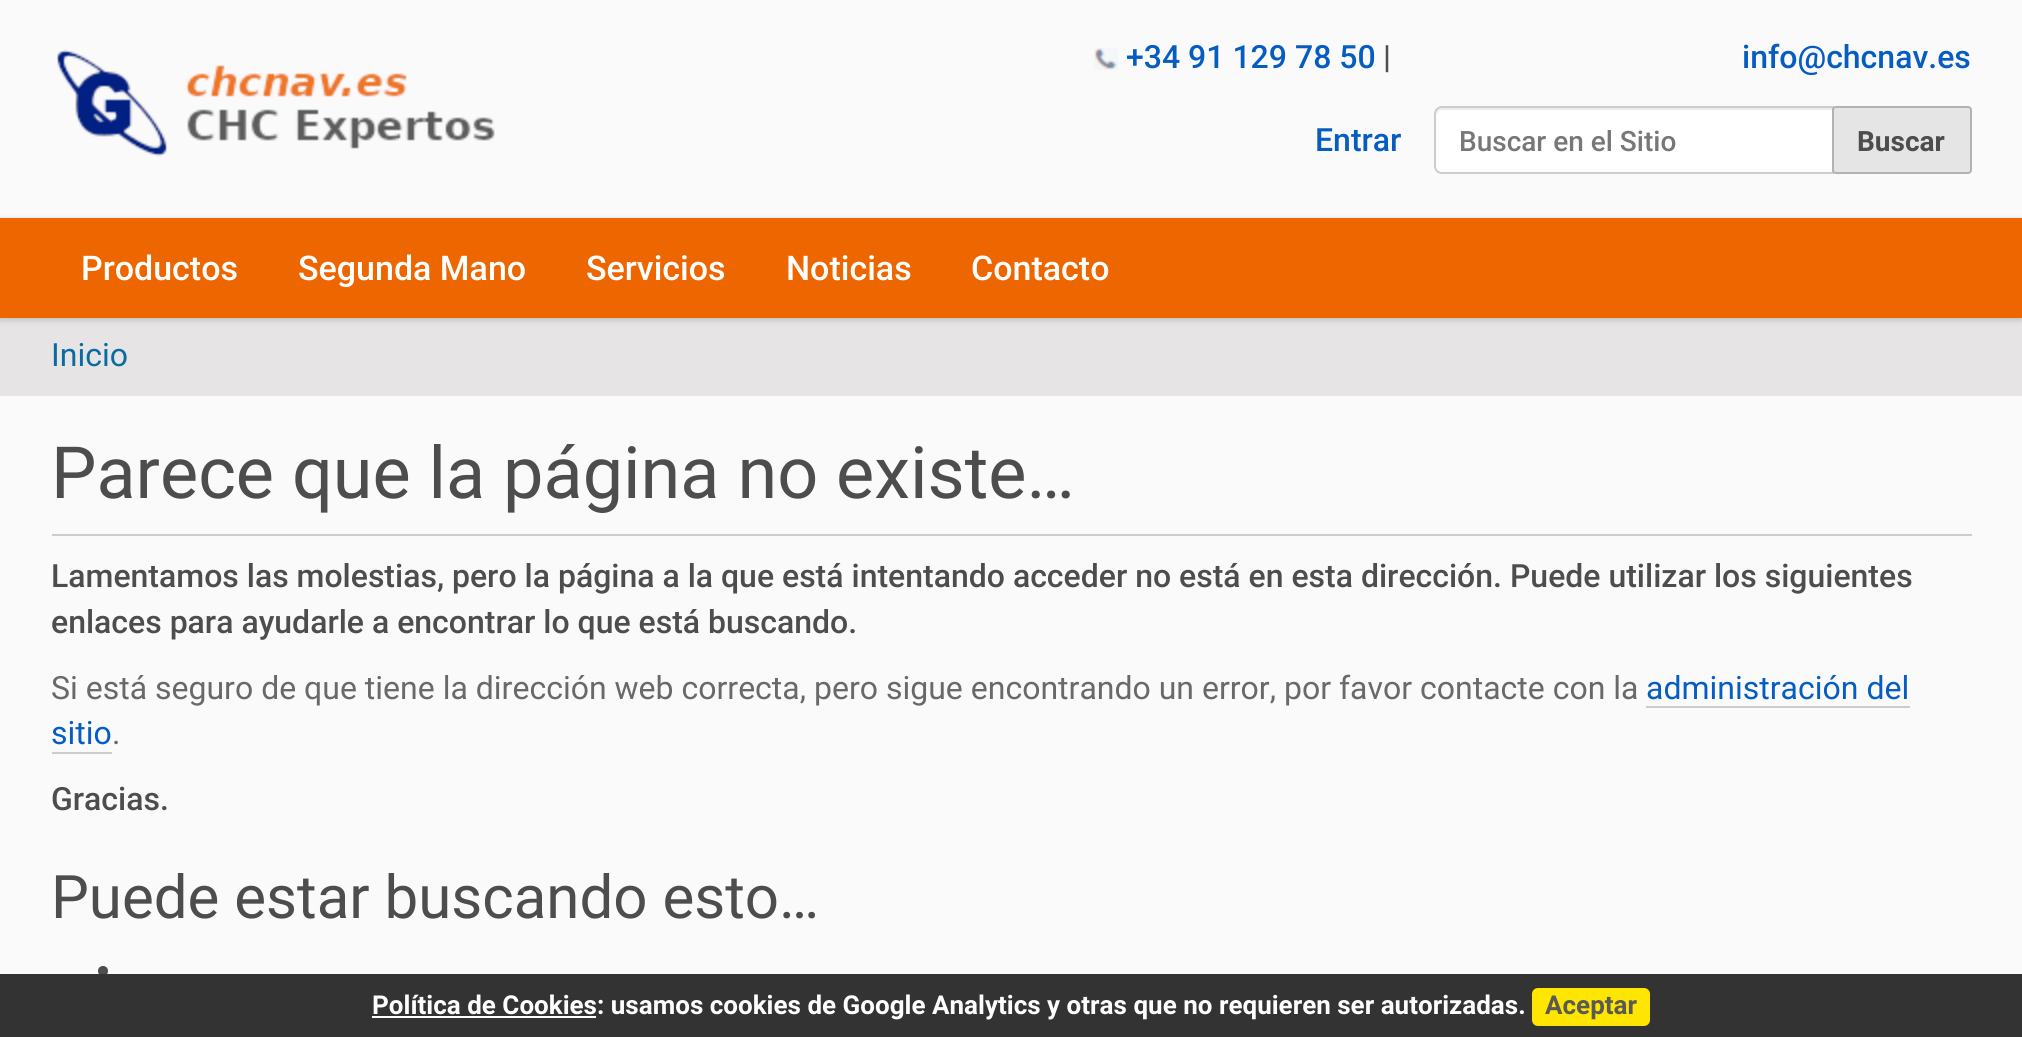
import math
import cairo

surface = cairo.ImageSurface(cairo.FORMAT_RGB24, 2022, 1037)
ctx = cairo.Context(surface)
options = cairo.FontOptions()
options.set_hint_metrics(cairo.HINT_METRICS_OFF)
options.set_hint_style(cairo.HINT_STYLE_NONE)
ctx.set_font_options(options)
ctx.set_miter_limit(4)


def set_color(code):
    ctx.set_source_rgb(*(v / 255 for v in bytes.fromhex(code[-6:])))


def draw_text(x, y, s, family, size, color, bold=False, italic=False):
    ctx.select_font_face(family, cairo.FONT_SLANT_ITALIC if italic else cairo.FONT_SLANT_NORMAL, cairo.FONT_WEIGHT_BOLD if bold else cairo.FONT_WEIGHT_NORMAL)
    ctx.set_font_size(size)
    set_color(color)
    ctx.move_to(x, y)
    ctx.show_text(s)


def fill_rect(x, y, w, h, color):
    set_color(color)
    ctx.rectangle(x, y, w, h)
    ctx.fill()


def rounded_rect(x, y, w, h, r):
    ctx.new_sub_path()
    for i, (u, v) in enumerate([(x + w - r, y + h - r), (x + r, y + h - r), (x + r, y + r), (x + w - r, y + r)]):
        ctx.arc(u, v, r, i * math.pi / 2, (i + 1) * math.pi / 2)
    ctx.close_path()


def draw_shadow(x, y, w, h, r, blur, alpha):
    ctx.push_group_with_content(cairo.CONTENT_ALPHA)
    ctx.set_operator(cairo.OPERATOR_SOURCE)
    for i in range(15, -16, -2):
        e = blur * i / 6
        if min(w, h) + 2 * e > 0:
            ctx.set_source_rgba(0, 0, 0, alpha * math.erfc((i - 1) / 8.5) / 2)
            rounded_rect(x - e, y - e, w + 2 * e, h + 2 * e, max(0, min(r + e + blur * .6, min(w, h) / 2 + e)))
            ctx.fill()
    ctx.mask(ctx.pop_group())


def draw_image(path, x, y, w, h):
    ctx.save()
    ctx.set_source_surface(cairo.ImageSurface.create_from_png(path), x, y)
    ctx.rectangle(x, y, w, h)
    ctx.fill()
    ctx.restore()


set_color("#fafafa")
ctx.paint()
draw_image("assets/img1.png", 56, 49, 439, 108)
draw_image("assets/img2.png", 1094, 48, 24, 22)
draw_text(1126, 68, "+34 91 129 78 50", "Roboto Medium", 32, "#055dc1")
draw_text(1383, 68, "|", "Roboto Medium", 32, "#4d4d4d")
draw_text(1742, 68, "info@chcnav.es", "Roboto Medium", 32, "#055dc1")
draw_text(1315, 151, "Entrar", "Roboto Medium", 32, "#055dc1")
set_color("#ffffff")
ctx.new_path()
ctx.move_to(1442, 106)
ctx.line_to(1834, 106)
ctx.line_to(1834, 174)
ctx.line_to(1442, 174)
ctx.curve_to(1437.5, 174, 1434, 170.5, 1434, 166)
ctx.line_to(1434, 114)
ctx.curve_to(1434, 109.5, 1437.5, 106, 1442, 106)
ctx.close_path()
ctx.fill()
set_color("#ececec")
ctx.new_path()
ctx.move_to(1442, 110)
ctx.line_to(1832, 110)
ctx.line_to(1832, 108)
ctx.line_to(1442, 108)
ctx.curve_to(1437, 108, 1436, 112, 1436, 116)
ctx.curve_to(1436, 113, 1439, 110, 1442, 110)
ctx.close_path()
ctx.fill()
ctx.new_path()
ctx.move_to(1442, 107)
ctx.line_to(1833, 107)
ctx.line_to(1833, 173)
ctx.line_to(1442, 173)
ctx.curve_to(1438, 173, 1435, 170, 1435, 166)
ctx.line_to(1435, 114)
ctx.curve_to(1435, 110, 1438, 107, 1442, 107)
ctx.close_path()
set_color("#cccccc")
ctx.stroke()
draw_text(1459, 151, "Buscar en el Sitio", "Roboto Medium", 28, "#777777")
set_color("#e5e5e5")
rounded_rect(1833, 107, 138, 66, 3)
ctx.fill_preserve()
set_color("#b2b2b2")
ctx.stroke()
draw_text(1857, 151, "Buscar", "Roboto", 28, "#4d4d4d", bold=True)
fill_rect(0, 318, 2022, 78, "#e6e4e4")
set_color("#000000")
draw_shadow(0, 220, 2022, 100, 0, 3, 0.17)
fill_rect(0, 218, 2022, 100, "#ee6600")
draw_text(81, 280, "Productos", "Roboto Medium", 34, "#ffffff")
draw_text(298, 280, "Segunda Mano", "Roboto Medium", 34, "#ffffff")
draw_text(586, 280, "Servicios", "Roboto Medium", 34, "#ffffff")
draw_text(786, 280, "Noticias", "Roboto Medium", 34, "#ffffff")
draw_text(971, 280, "Contacto", "Roboto Medium", 34, "#ffffff")
draw_text(51, 366, "Inicio", "Roboto", 32, "#086ca3")
fill_rect(52, 534, 1920, 2, "#cccccc")
draw_text(51, 498, "Parece que la página no existe…", "Roboto", 72, "#4d4d4d")
draw_text(51, 587, "Lamentamos las molestias, pero la página a la que está intentando acceder no está en esta dirección. Puede utilizar los siguientes", "Roboto Medium", 32, "#4d4d4d")
draw_text(51, 633, "enlaces para ayudarle a encontrar lo que está buscando.", "Roboto Medium", 32, "#4d4d4d")
draw_text(51, 699, "Si está seguro de que tiene la dirección web correcta, pero sigue encontrando un error, por favor contacte con la", "Roboto", 32, "#696969")
draw_text(1646, 699, "administración del", "Roboto", 32, "#055dc1")
fill_rect(1646, 706, 264, 2, "#cccccc")
draw_text(51, 744, "sitio", "Roboto", 32, "#055dc1")
fill_rect(52, 752, 60, 2, "#cccccc")
draw_text(112, 744, ".", "Roboto", 32, "#696969")
draw_text(51, 810, "Gracias.", "Roboto Medium", 32, "#4d4d4d")
draw_text(51, 918, "Puede estar buscando esto…", "Roboto", 60, "#4d4d4d")
ctx.new_path()
ctx.arc(103, 971, 5, 0, 2 * math.pi)
ctx.fill()
fill_rect(0, 974, 2022, 63, "#333333")
fill_rect(372, 1016, 224, 2, "#ffffff")
draw_text(372, 1014, "Política de Cookies: usamos cookies de Google Analytics y otras que no requieren ser autorizadas.", "Roboto", 26, "#ffffff", bold=True)
set_color("#ffe600")
rounded_rect(1532, 988, 118, 38, 6)
ctx.fill()
draw_text(1545, 1014, "Aceptar", "Roboto", 26, "#595958", bold=True)
surface.write_to_png("output.png")
